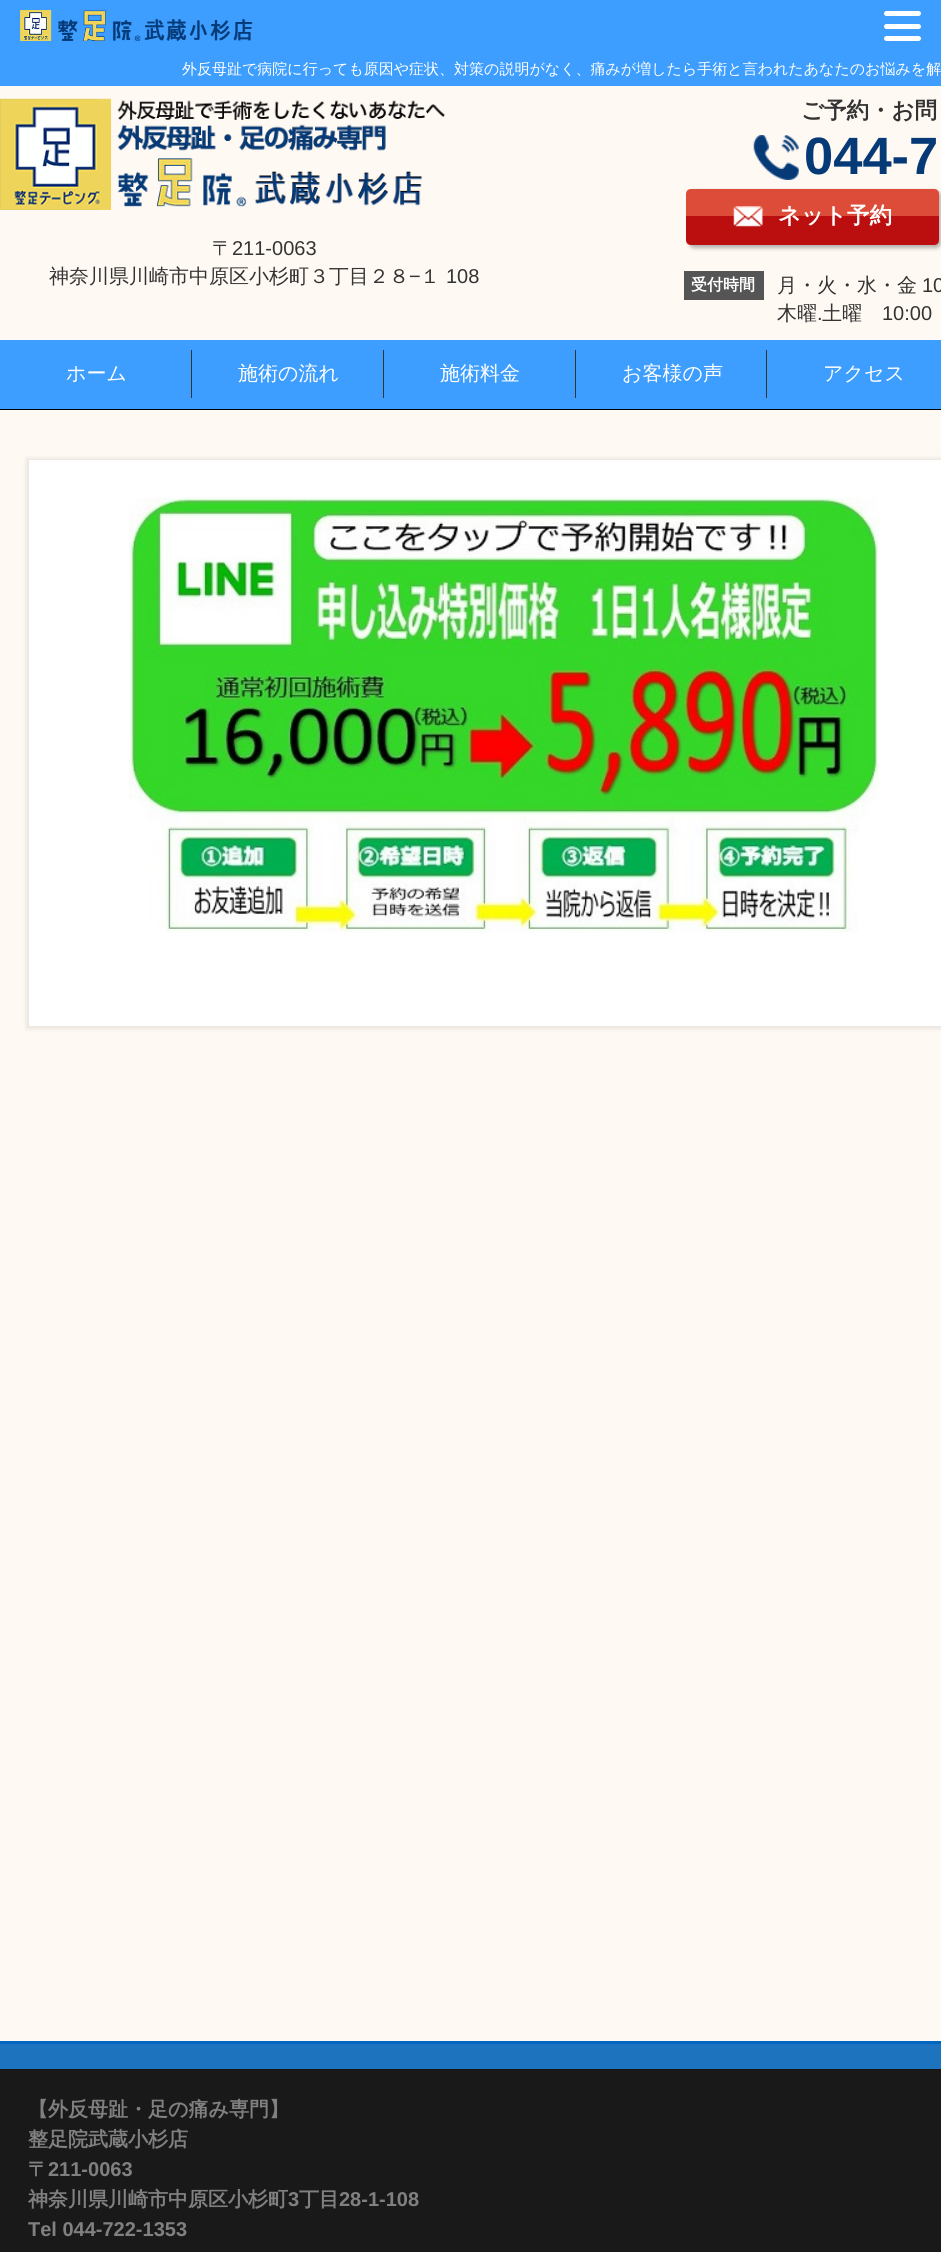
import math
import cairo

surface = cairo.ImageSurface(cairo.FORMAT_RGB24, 941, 2252)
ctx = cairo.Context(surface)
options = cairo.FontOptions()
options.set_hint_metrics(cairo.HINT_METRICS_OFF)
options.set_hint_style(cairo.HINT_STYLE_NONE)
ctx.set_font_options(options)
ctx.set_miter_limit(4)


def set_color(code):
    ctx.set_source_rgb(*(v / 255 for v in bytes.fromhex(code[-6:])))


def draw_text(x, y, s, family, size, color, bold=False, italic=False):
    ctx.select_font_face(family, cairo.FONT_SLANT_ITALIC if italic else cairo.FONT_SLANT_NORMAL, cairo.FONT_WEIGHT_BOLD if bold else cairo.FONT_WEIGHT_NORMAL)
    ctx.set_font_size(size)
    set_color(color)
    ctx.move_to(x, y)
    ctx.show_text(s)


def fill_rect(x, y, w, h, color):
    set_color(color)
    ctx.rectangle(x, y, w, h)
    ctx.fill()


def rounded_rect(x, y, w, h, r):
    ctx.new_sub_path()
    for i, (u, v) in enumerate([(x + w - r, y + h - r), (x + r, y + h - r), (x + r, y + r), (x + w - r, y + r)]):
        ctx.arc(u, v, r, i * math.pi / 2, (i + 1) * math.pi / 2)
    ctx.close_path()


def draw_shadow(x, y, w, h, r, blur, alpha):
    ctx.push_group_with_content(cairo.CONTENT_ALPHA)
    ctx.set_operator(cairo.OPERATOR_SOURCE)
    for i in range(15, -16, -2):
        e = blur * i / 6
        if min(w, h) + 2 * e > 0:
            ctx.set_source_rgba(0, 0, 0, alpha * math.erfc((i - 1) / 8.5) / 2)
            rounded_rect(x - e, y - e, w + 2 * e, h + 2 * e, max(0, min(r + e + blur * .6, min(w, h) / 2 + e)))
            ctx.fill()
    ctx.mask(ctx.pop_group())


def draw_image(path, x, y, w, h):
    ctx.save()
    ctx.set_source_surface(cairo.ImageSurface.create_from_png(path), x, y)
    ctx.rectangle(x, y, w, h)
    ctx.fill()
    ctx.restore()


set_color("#fff9f4")
ctx.paint()
fill_rect(0, 0, 941, 86, "#3d9eff")
draw_image("assets/img1.png", 20, 10, 233, 31)
set_color("#ffffff")
rounded_rect(884, 11, 37, 5, 2.5)
ctx.fill()
rounded_rect(884, 24, 37, 5, 2.5)
ctx.fill()
rounded_rect(884, 36, 37, 5, 2.5)
ctx.fill()
draw_text(182, 74, "外反母趾で病院に行っても原因や症状、対策の説明がなく、痛みが増したら手術と言われたあなたのお悩みを解", "WenQuanYi Zen Hei Medium", 15, "#ffffff")
draw_image("assets/img2.png", 0, 98, 445, 112)
draw_text(212, 255, "〒", "WenQuanYi Zen Hei Medium", 20, "#333333")
draw_text(232, 255, "211-0063", "Liberation Sans", 20, "#333333")
draw_text(49, 283, "神奈川県川崎市中原区小杉町３丁目２８", "WenQuanYi Zen Hei Medium", 20, "#333333")
draw_text(409, 283, "−", "Liberation Sans", 20, "#333333")
draw_text(420, 283, "１", "WenQuanYi Zen Hei Medium", 20, "#333333")
draw_text(446, 283, "108", "Liberation Sans", 20, "#333333")
draw_text(801, 118, "ご予約・お問", "WenQuanYi Zen Hei", 22.5, "#333333", bold=True)
draw_image("assets/img3.png", 753, 135, 46, 45)
draw_text(804, 174, "044-7", "Liberation Sans", 52.5, "#053a77", bold=True)
set_color("#000000")
draw_shadow(689, 191, 252, 57, 5, 2, 0.3)
set_color("#dd4b39")
ctx.new_path()
ctx.move_to(691, 189)
ctx.line_to(934, 189)
ctx.curve_to(937, 189, 939, 191, 939, 194)
ctx.line_to(939, 216)
ctx.line_to(686, 216)
ctx.line_to(686, 194)
ctx.curve_to(686, 191, 688, 189, 691, 189)
ctx.close_path()
ctx.fill()
set_color("#bb0f0f")
ctx.new_path()
ctx.move_to(686, 216)
ctx.line_to(939, 216)
ctx.line_to(939, 240)
ctx.curve_to(939, 243, 937, 245, 934, 245)
ctx.line_to(691, 245)
ctx.curve_to(688, 245, 686, 243, 686, 240)
ctx.close_path()
ctx.fill()
draw_image("assets/img4.png", 733, 206, 30, 21)
draw_text(778, 223, "ネット予約", "WenQuanYi Zen Hei", 22.5, "#ffffff", bold=True)
fill_rect(684, 271, 80, 29, "#555555")
draw_text(691, 290, "受付時間", "WenQuanYi Zen Hei", 16, "#ffffff", bold=True)
draw_text(777, 292, "月・火・水・金", "WenQuanYi Zen Hei Medium", 20, "#333333")
draw_text(922, 292, "10", "Liberation Sans", 20, "#333333")
draw_text(777, 320, "木曜", "WenQuanYi Zen Hei Medium", 20, "#333333")
draw_text(817, 320, ".", "Liberation Sans", 20, "#333333")
draw_text(822, 320, "土曜", "WenQuanYi Zen Hei Medium", 20, "#333333")
draw_text(882, 320, "10:00", "Liberation Sans", 20, "#333333")
fill_rect(0, 340, 941, 69, "#3d9eff")
fill_rect(0, 409, 941, 1, "#000000")
draw_text(66, 380, "ホーム", "WenQuanYi Zen Hei Medium", 20, "#ffffff")
fill_rect(191, 350, 1, 48, "#333333")
draw_text(238, 380, "施術の流れ", "WenQuanYi Zen Hei Medium", 20, "#ffffff")
fill_rect(383, 350, 1, 48, "#333333")
draw_text(440, 380, "施術料金", "WenQuanYi Zen Hei Medium", 20, "#ffffff")
fill_rect(575, 350, 1, 48, "#333333")
draw_text(622, 380, "お客様の声", "WenQuanYi Zen Hei Medium", 20, "#ffffff")
fill_rect(766, 350, 1, 48, "#333333")
draw_text(823, 380, "アクセス", "WenQuanYi Zen Hei Medium", 20, "#ffffff")
set_color("#000000")
draw_shadow(26, 458, 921, 571, 0, 2, 0.08)
fill_rect(29, 460, 912, 566, "#ffffff")
draw_image("assets/img5.png", 129, 497, 750, 436)
fill_rect(0, 2044, 941, 25, "#1e73be")
fill_rect(0, 2041, 941, 3, "#0166bf")
fill_rect(0, 2070, 941, 182, "#191919")
fill_rect(0, 2069, 941, 1, "#151515")
draw_text(28, 2116, "【外反母趾・足の痛み専門】", "WenQuanYi Zen Hei", 20, "#808080", bold=True)
draw_text(28, 2146, "整足院武蔵小杉店", "WenQuanYi Zen Hei", 20, "#808080", bold=True)
draw_text(28, 2176, "〒", "WenQuanYi Zen Hei", 20, "#808080", bold=True)
draw_text(48, 2176, "211-0063", "Liberation Sans", 20, "#808080", bold=True)
draw_text(28, 2206, "神奈川県川崎市中原区小杉町", "WenQuanYi Zen Hei", 20, "#808080", bold=True)
draw_text(288, 2206, "3", "Liberation Sans", 20, "#808080", bold=True)
draw_text(299, 2206, "丁目", "WenQuanYi Zen Hei", 20, "#808080", bold=True)
draw_text(339, 2206, "28-1-108", "Liberation Sans", 20, "#808080", bold=True)
draw_text(28, 2236, "Tel 044-722-1353", "Liberation Sans", 20, "#808080", bold=True)
surface.write_to_png("output.png")
